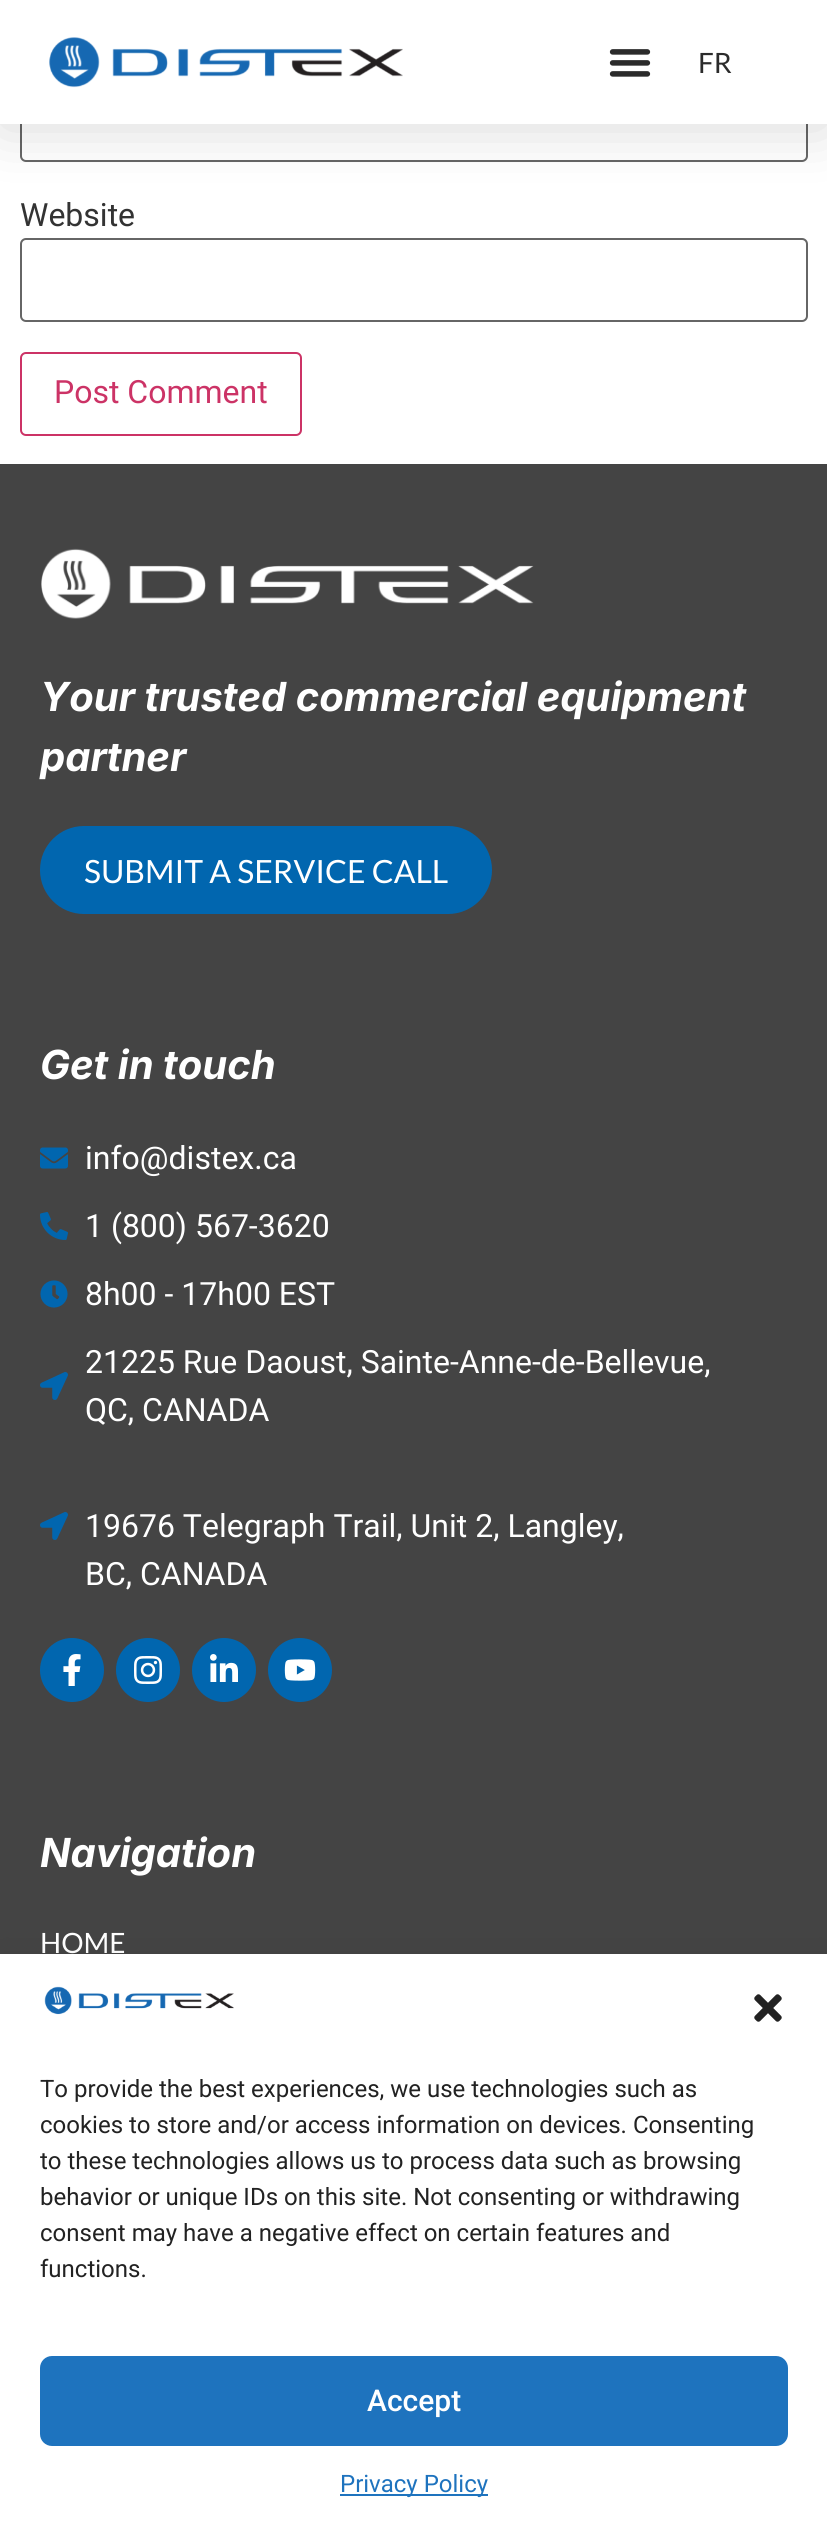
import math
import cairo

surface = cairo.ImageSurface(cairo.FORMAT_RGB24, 827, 2531)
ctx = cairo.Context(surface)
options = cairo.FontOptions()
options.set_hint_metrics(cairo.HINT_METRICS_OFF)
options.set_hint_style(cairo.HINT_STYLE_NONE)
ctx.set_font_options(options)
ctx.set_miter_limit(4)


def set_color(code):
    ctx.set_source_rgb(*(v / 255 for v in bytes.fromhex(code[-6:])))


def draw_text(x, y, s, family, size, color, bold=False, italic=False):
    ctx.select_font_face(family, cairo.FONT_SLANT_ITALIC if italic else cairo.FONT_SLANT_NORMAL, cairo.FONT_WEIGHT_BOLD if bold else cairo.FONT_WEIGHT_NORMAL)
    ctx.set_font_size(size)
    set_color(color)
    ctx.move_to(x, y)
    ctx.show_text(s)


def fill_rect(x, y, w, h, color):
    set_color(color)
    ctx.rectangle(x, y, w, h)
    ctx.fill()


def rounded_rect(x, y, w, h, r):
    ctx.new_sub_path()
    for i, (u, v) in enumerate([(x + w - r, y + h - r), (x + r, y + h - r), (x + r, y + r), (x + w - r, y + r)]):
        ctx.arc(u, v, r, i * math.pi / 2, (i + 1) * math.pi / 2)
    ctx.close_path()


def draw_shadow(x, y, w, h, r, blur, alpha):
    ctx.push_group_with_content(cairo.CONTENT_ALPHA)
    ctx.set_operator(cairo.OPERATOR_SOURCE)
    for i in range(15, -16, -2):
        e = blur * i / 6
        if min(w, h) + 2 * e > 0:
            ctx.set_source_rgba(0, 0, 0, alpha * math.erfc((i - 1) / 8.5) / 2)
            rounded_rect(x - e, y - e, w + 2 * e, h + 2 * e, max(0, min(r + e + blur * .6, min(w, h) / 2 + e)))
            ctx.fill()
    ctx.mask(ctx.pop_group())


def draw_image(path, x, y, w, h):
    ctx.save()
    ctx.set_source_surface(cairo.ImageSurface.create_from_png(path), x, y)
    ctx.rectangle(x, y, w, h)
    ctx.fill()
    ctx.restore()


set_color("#ffffff")
ctx.paint()
rounded_rect(21, 79, 786, 82, 5)
set_color("#666666")
ctx.stroke()
set_color("#000000")
draw_shadow(0, 4, 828, 124, 0, 30, 0.15)
fill_rect(0, 0, 827, 124, "#ffffff")
draw_image("assets/img1.png", 49, 37, 354, 51)
draw_image("assets/img2.png", 609, 49, 42, 28)
draw_text(698, 73, "FR", "Lato", 28, "#2b2b2b")
draw_text(20, 226, "Website", "Roboto", 32, "#333333")
rounded_rect(21, 239, 786, 82, 5)
set_color("#666666")
ctx.stroke()
rounded_rect(21, 353, 280, 82, 5)
set_color("#cc3366")
ctx.stroke()
draw_text(54, 403, "Post Comment", "Roboto", 32, "#cc3366")
fill_rect(0, 464, 827, 1490, "#444444")
draw_image("assets/img3.png", 41, 548, 493, 71)
draw_text(40, 711, "Your trusted commercial equipment", "Inter", 40, "#ffffff", bold=True, italic=True)
draw_text(40, 771, "partner", "Inter", 40, "#ffffff", bold=True, italic=True)
set_color("#0166af")
rounded_rect(42, 828, 448, 84, 42)
ctx.fill_preserve()
ctx.set_line_width(4)
ctx.stroke()
draw_text(84, 883, "SUBMIT A SERVICE CALL", "Lato", 32, "#ffffff")
draw_text(40, 1079, "Get in touch", "Inter", 40, "#ffffff", bold=True, italic=True)
draw_image("assets/img4.png", 40, 1147, 28, 22)
draw_text(85, 1169, "info@distex.ca", "Roboto", 32, "#ffffff")
draw_image("assets/img5.png", 40, 1212, 28, 28)
draw_text(85, 1237, "1 (800) 567-3620", "Roboto", 32, "#ffffff")
draw_image("assets/img6.png", 40, 1280, 28, 28)
draw_text(85, 1305, "8h00 - 17h00 EST", "Roboto", 32, "#ffffff")
draw_image("assets/img7.png", 40, 1372, 28, 28)
draw_text(85, 1373, "21225 Rue Daoust, Sainte-Anne-de-Bellevue,", "Roboto", 32, "#ffffff")
draw_text(85, 1421, "QC, CANADA", "Roboto", 32, "#ffffff")
draw_image("assets/img7.png", 40, 1512, 28, 28)
draw_text(85, 1537, "19676 Telegraph Trail, Unit 2, Langley,", "Roboto", 32, "#ffffff")
draw_text(85, 1585, "BC, CANADA", "Roboto", 32, "#ffffff")
set_color("#0166af")
ctx.new_path()
ctx.arc(72, 1670, 32, 0, 2 * math.pi)
ctx.fill()
draw_image("assets/img8.png", 63, 1654, 18, 32)
ctx.arc(148, 1670, 32, 0, 2 * math.pi)
ctx.fill()
draw_image("assets/img9.png", 134, 1656, 28, 28)
ctx.arc(224, 1670, 32, 0, 2 * math.pi)
ctx.fill()
draw_image("assets/img10.png", 210, 1654, 28, 28)
ctx.arc(300, 1670, 32, 0, 2 * math.pi)
ctx.fill()
draw_image("assets/img11.png", 284, 1659, 32, 22)
draw_text(40, 1867, "Navigation", "Inter", 40, "#ffffff", bold=True, italic=True)
draw_text(40, 1953, "HOME", "Lato", 28, "#ffffff")
set_color("#000000")
draw_shadow(0, 1974, 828, 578, 0, 20, 0.19)
fill_rect(0, 1954, 827, 577, "#ffffff")
draw_image("assets/img12.png", 44, 1986, 190, 29)
draw_image("assets/img13.png", 754, 1994, 28, 28)
draw_text(40, 2097, "To provide the best experiences, we use technologies such as", "Roboto", 24, "#222222")
draw_text(40, 2133, "cookies to store and/or access information on devices. Consenting", "Roboto", 24, "#222222")
draw_text(40, 2169, "to these technologies allows us to process data such as browsing", "Roboto", 24, "#222222")
draw_text(40, 2205, "behavior or unique IDs on this site. Not consenting or withdrawing", "Roboto", 24, "#222222")
draw_text(40, 2241, "consent may have a negative effect on certain features and", "Roboto", 24, "#222222")
draw_text(40, 2277, "functions.", "Roboto", 24, "#222222")
set_color("#1e73be")
rounded_rect(41, 2357, 746, 88, 11)
ctx.fill_preserve()
ctx.set_line_width(2)
ctx.stroke()
draw_text(367, 2411, "Accept", "Roboto Medium", 30, "#ffffff")
fill_rect(340, 2494, 148, 2, "#1e73be")
draw_text(340, 2492, "Privacy Policy", "Roboto", 24, "#1e73be")
surface.write_to_png("output.png")
